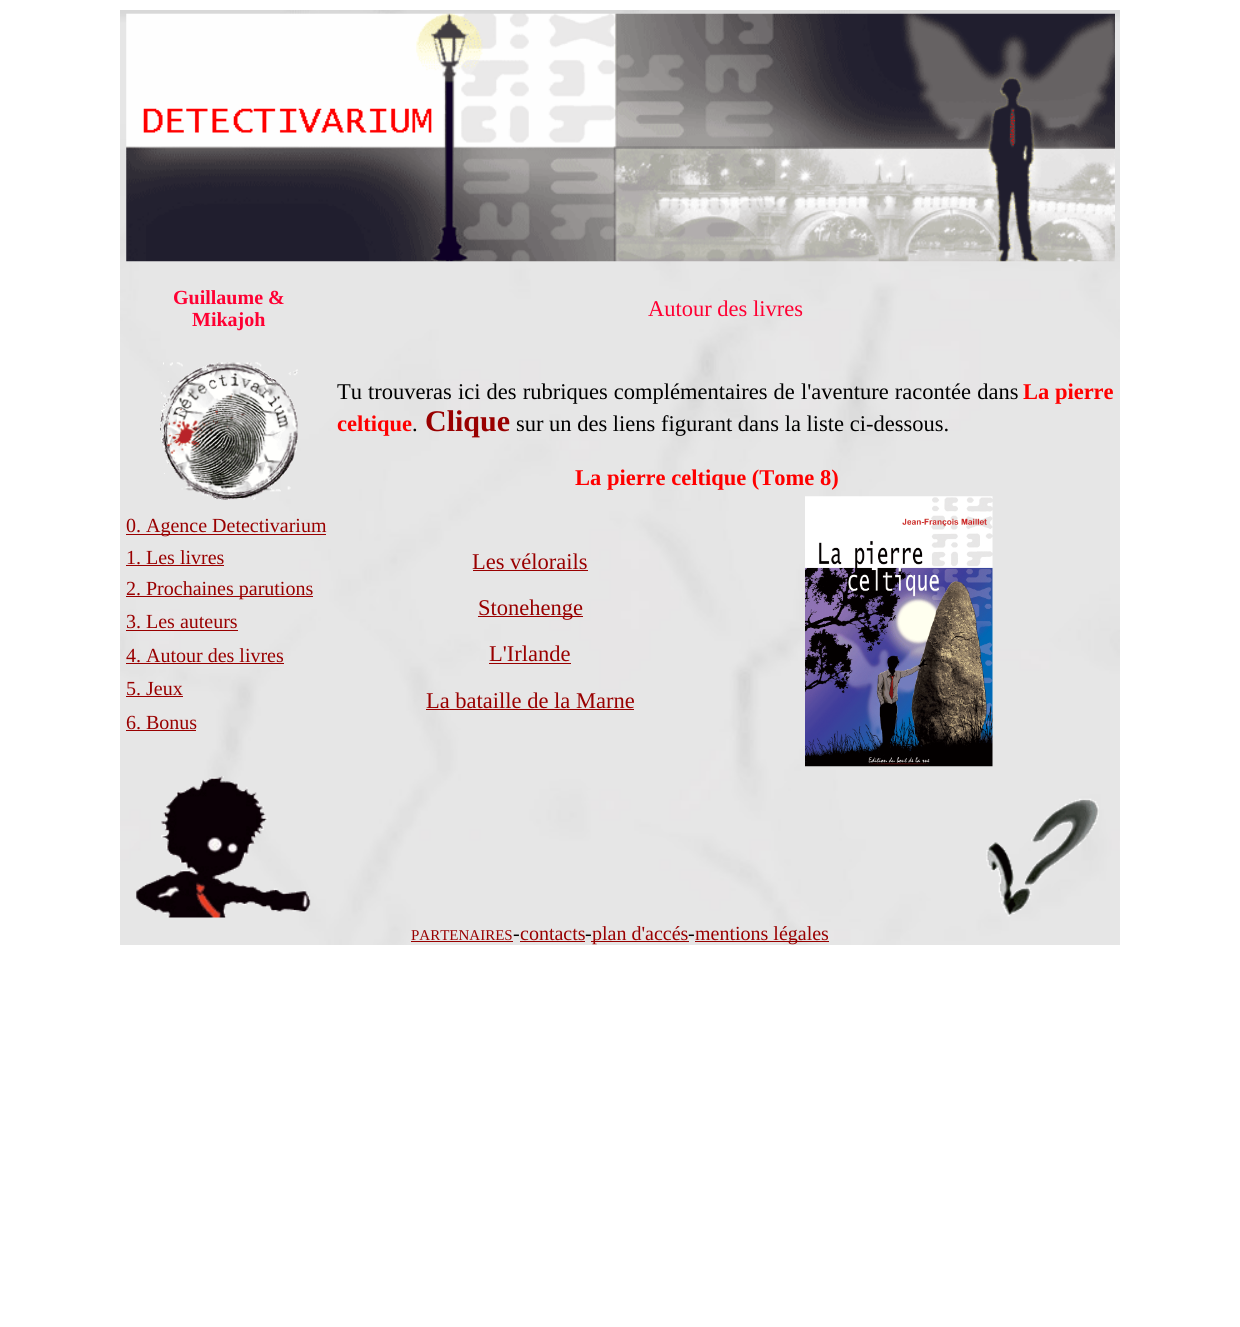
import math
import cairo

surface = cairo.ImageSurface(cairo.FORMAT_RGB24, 1240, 1327)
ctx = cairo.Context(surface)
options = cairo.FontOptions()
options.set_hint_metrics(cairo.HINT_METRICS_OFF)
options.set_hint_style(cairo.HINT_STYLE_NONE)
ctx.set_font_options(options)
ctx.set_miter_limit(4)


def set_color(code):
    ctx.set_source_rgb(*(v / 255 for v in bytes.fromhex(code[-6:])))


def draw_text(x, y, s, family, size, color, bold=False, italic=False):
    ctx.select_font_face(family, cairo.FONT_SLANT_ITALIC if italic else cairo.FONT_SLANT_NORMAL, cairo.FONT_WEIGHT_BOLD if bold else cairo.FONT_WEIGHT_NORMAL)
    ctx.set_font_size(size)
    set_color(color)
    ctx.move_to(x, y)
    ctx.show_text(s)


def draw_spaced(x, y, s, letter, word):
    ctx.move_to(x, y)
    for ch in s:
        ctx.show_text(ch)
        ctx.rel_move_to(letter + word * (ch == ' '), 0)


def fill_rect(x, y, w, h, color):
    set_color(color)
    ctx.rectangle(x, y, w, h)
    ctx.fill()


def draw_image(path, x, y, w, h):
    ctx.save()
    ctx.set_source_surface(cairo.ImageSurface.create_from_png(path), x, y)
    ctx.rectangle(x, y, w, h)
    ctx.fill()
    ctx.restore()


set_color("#ffffff")
ctx.paint()
draw_image("assets/img1.png", 120, 10, 1000, 935)
draw_image("assets/img2.png", 126, 13, 989, 249)
draw_text(173, 304, "Guillaume &", "Liberation Serif", 20, "#ff0033", bold=True)
draw_text(192, 326, "Mikajoh", "Liberation Serif", 20, "#ff0033", bold=True)
draw_text(648, 316, "Autour des livres", "Liberation Serif", 22.5, "#ff0033")
fill_rect(126, 534, 200, 1, "#990000")
draw_text(126, 532, "0. Agence Detectivarium", "Liberation Serif", 20, "#990000")
draw_image("assets/img3.png", 160, 362, 138, 138)
ctx.set_font_size(22.5)
set_color("#000000")
draw_spaced(337, 399, "Tu trouveras ici des rubriques complémentaires de l'aventure racontée dans", 0, 0.5)
draw_text(1023, 399, "La pierre", "Liberation Serif", 22.5, "#ff0000", bold=True)
draw_text(337, 431, "celtique", "Liberation Serif", 22.5, "#ff0000", bold=True)
draw_text(412, 431, ".", "Liberation Serif", 22.5, "#000000")
draw_text(425, 431, "Clique", "Liberation Serif", 30, "#990000", bold=True)
draw_text(516, 431, "sur un des liens figurant dans la liste ci-dessous.", "Liberation Serif", 22.5, "#000000")
draw_text(575, 485, "La pierre celtique (Tome 8)", "Liberation Serif", 22.5, "#ff0000", bold=True)
draw_text(472, 569, "Les vélorails", "Liberation Serif", 22.5, "#990000")
fill_rect(473, 570, 115, 1, "#990000")
fill_rect(478, 616, 105, 1, "#990000")
draw_text(478, 615, "Stonehenge", "Liberation Serif", 22.5, "#990000")
draw_text(489, 661, "L'Irlande", "Liberation Serif", 22.5, "#990000")
fill_rect(489, 663, 82, 1, "#990000")
draw_text(426, 708, "La bataille de la Marne", "Liberation Serif", 22.5, "#990000")
fill_rect(426, 709, 208, 1, "#990000")
draw_image("assets/img4.png", 805, 496, 188, 271)
draw_text(126, 564, "1. Les livres", "Liberation Serif", 20, "#990000")
fill_rect(126, 565, 98, 1, "#990000")
fill_rect(126, 596, 187, 1, "#990000")
draw_text(126, 595, "2. Prochaines parutions", "Liberation Serif", 20, "#990000")
draw_text(126, 628, "3. Les auteurs", "Liberation Serif", 20, "#990000")
fill_rect(126, 630, 112, 1, "#990000")
draw_text(126, 662, "4. Autour des livres", "Liberation Serif", 20, "#990000")
fill_rect(126, 663, 158, 1, "#990000")
draw_text(126, 695, "5. Jeux", "Liberation Serif", 20, "#990000")
fill_rect(126, 696, 57, 1, "#990000")
draw_text(126, 729, "6. Bonus", "Liberation Serif", 20, "#990000")
fill_rect(126, 730, 70, 1, "#990000")
draw_image("assets/img5.png", 136, 776, 175, 142)
draw_image("assets/img6.png", 986, 798, 113, 119)
draw_text(411, 940, "PARTENAIRES", "Liberation Serif", 15, "#990000")
fill_rect(411, 941, 102, 1, "#990000")
draw_text(513, 940, "-", "Liberation Serif", 20, "#000000")
draw_text(520, 940, "contacts", "Liberation Serif", 20, "#990000")
fill_rect(520, 941, 65, 1, "#990000")
draw_text(585, 940, "-", "Liberation Serif", 20, "#000000")
fill_rect(591, 941, 98, 1, "#990000")
draw_text(592, 940, "plan d'accés", "Liberation Serif", 20, "#990000")
draw_text(688, 940, "-", "Liberation Serif", 20, "#000000")
fill_rect(695, 941, 134, 1, "#990000")
draw_text(695, 940, "mentions légales", "Liberation Serif", 20, "#990000")
surface.write_to_png("output.png")
